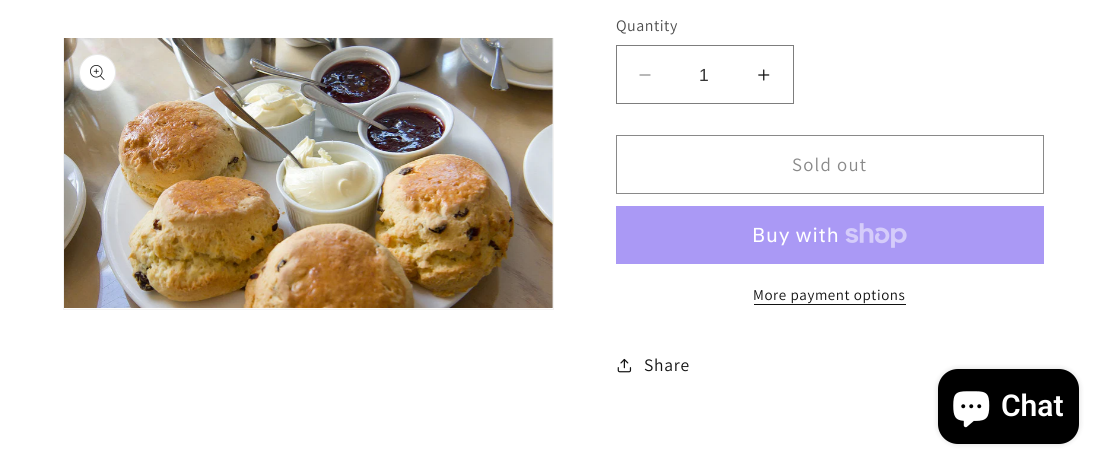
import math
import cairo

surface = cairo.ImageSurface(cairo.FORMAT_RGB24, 1106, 470)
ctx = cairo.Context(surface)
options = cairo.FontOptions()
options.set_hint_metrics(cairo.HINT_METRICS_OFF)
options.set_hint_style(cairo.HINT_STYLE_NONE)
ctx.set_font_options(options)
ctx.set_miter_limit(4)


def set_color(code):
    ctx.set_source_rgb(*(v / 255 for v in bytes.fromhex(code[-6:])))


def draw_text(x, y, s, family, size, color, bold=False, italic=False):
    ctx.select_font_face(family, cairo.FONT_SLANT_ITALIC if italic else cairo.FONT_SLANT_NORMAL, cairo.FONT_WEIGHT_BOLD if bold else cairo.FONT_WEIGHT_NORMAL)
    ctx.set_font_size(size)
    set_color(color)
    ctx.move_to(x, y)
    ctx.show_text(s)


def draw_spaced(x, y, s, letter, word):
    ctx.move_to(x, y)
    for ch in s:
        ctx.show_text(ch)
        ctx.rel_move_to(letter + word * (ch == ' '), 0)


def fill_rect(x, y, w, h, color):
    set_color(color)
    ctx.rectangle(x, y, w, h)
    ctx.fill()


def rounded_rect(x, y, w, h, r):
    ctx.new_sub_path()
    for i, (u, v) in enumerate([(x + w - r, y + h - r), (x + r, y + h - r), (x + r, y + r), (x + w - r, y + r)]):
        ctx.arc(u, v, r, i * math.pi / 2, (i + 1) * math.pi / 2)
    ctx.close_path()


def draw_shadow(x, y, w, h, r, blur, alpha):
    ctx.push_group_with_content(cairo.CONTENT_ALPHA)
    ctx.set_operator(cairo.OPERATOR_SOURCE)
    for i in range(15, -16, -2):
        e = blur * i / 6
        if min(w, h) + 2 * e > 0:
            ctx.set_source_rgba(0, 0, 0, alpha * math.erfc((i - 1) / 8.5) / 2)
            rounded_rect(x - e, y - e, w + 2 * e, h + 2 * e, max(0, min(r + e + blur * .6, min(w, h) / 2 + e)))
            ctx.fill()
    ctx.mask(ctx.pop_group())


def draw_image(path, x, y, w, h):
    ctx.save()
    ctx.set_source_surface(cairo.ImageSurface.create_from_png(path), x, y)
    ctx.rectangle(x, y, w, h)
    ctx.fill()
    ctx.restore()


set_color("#ffffff")
ctx.paint()
ctx.rectangle(63.5, 38.5, 490, 271)
set_color("#f3f3f3")
ctx.set_line_width(1)
ctx.stroke()
draw_image("assets/img1.png", 64, 38, 489, 270)
set_color("#ffffff")
ctx.arc(97.5, 72.5, 18.5, 0, 2 * math.pi)
ctx.fill()
ctx.arc(97.5, 72.5, 18, 0, 2 * math.pi)
ctx.set_source_rgba(0.071, 0.071, 0.071, 0.1)
ctx.stroke()
draw_image("assets/img2.png", 90, 65, 15, 15)
ctx.select_font_face("Assistant")
ctx.set_font_size(16)
set_color("#4d4d4d")
draw_spaced(616, 31, "Quantity", 0.5, 0)
draw_image("assets/img3.png", 639, 74, 12, 2)
draw_image("assets/img4.png", 758, 69, 12, 12)
ctx.rectangle(616.5, 45.5, 177, 58)
set_color("#7d7d7d")
ctx.stroke()
draw_text(699, 81, "1", "Liberation Sans", 17.5, "#363636")
ctx.rectangle(616.5, 135.5, 427, 58)
set_color("#898989")
ctx.stroke()
ctx.select_font_face("Assistant")
ctx.set_font_size(18.75)
draw_spaced(792, 171, "Sold out", 1.25, 0)
fill_rect(616, 206, 428, 58, "#aa99f5")
ctx.select_font_face("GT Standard")
ctx.set_font_size(20)
set_color("#ffffff")
draw_spaced(752, 242, "Buy with", 0.75, 0)
draw_image("assets/img5.png", 845, 223, 62, 25)
ctx.select_font_face("Assistant")
ctx.set_font_size(15)
set_color("#121212")
draw_spaced(753, 300, "More payment options", 0.6, 0)
fill_rect(754, 304, 152, 1, "#121212")
draw_image("assets/img6.png", 617, 358, 15, 15)
ctx.set_font_size(17.5)
draw_spaced(644, 371, "Share", 0.75, 0)
set_color("#000000")
draw_shadow(938, 369, 141, 75, 20, 3, 0.15)
set_color("#000000")
rounded_rect(938, 369, 141, 75, 20)
ctx.fill()
draw_image("assets/img7.png", 953, 391, 37, 37)
draw_text(1001, 416, "Chat", "Roboto SemiBold", 30, "#ffffff")
surface.write_to_png("output.png")
